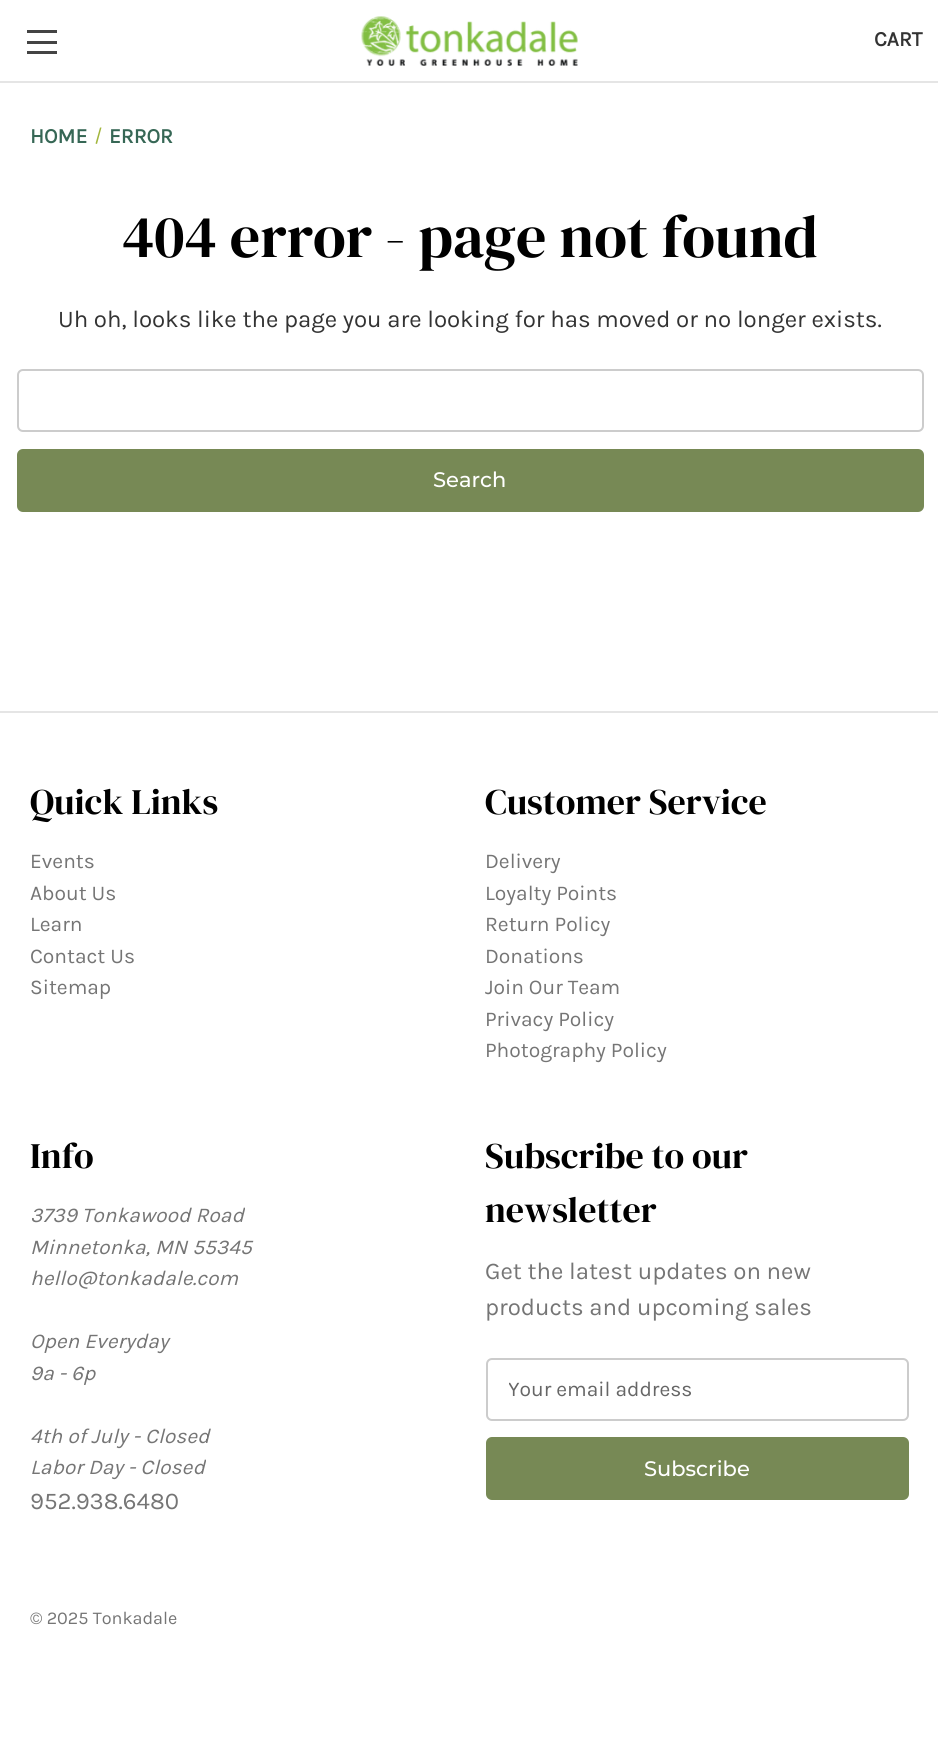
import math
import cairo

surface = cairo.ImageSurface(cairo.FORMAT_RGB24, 938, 1744)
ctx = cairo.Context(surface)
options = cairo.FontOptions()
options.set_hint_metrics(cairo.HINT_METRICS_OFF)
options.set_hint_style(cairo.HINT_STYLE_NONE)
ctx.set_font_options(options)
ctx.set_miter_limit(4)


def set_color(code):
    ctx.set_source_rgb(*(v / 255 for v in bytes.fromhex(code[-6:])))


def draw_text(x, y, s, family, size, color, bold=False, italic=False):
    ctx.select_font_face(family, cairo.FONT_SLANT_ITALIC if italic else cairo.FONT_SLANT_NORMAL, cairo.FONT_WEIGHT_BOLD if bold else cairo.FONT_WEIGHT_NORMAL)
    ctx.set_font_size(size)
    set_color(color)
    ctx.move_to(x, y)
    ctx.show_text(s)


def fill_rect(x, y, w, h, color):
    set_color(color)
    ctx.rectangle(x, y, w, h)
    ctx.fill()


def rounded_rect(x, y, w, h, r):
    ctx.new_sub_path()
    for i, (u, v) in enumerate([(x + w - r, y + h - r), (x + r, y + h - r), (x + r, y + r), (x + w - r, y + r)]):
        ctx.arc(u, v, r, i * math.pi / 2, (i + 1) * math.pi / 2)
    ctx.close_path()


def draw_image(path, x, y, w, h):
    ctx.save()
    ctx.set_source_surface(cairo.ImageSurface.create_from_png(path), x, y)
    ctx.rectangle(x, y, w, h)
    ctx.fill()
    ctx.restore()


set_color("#ffffff")
ctx.paint()
fill_rect(0, 81, 938, 2, "#e5e5e5")
fill_rect(27, 41, 30, 3, "#444444")
fill_rect(27, 30, 30, 3, "#444444")
fill_rect(27, 51, 30, 3, "#444444")
draw_image("assets/img1.png", 361, 16, 217, 50)
draw_text(874, 46, "CART", "Karla", 21, "#333333", bold=True)
draw_text(30, 143, "HOME", "Karla", 21, "#366755", bold=True)
set_color("#a2b63c")
ctx.new_path()
ctx.move_to(100, 127.5)
ctx.line_to(101.5, 127.5)
ctx.line_to(97, 144)
ctx.line_to(95.5, 143.5)
ctx.close_path()
ctx.fill()
draw_text(109, 143, "ERROR", "Karla", 21, "#366755", bold=True)
draw_text(122, 257, "404 error - page not found", "DM Serif Display", 60, "#000000")
draw_text(58, 327, "Uh oh, looks like the page you are looking for has moved or no longer exists.", "Karla", 24, "#333333")
rounded_rect(18, 370, 905, 61, 5)
set_color("#cccccc")
ctx.stroke()
set_color("#778955")
rounded_rect(18, 450, 905, 61, 5)
ctx.fill_preserve()
ctx.stroke()
draw_text(433, 487, "Search", "Montserrat Medium", 21, "#ffffff")
fill_rect(0, 711, 938, 2, "#e5e5e5")
draw_text(30, 814, "Quick Links", "DM Serif Display", 36, "#000000")
draw_text(30, 868, "Events", "Karla", 21, "#757575")
draw_text(30, 900, "About Us", "Karla", 21, "#757575")
draw_text(30, 931, "Learn", "Karla", 21, "#757575")
draw_text(30, 963, "Contact Us", "Karla", 21, "#757575")
draw_text(30, 994, "Sitemap", "Karla", 21, "#757575")
draw_text(485, 814, "Customer Service", "DM Serif Display", 36, "#000000")
draw_text(485, 868, "Delivery", "Karla", 21, "#757575")
draw_text(485, 900, "Loyalty Points", "Karla", 21, "#757575")
draw_text(485, 931, "Return Policy", "Karla", 21, "#757575")
draw_text(485, 963, "Donations", "Karla", 21, "#757575")
draw_text(485, 994, "Join Our Team", "Karla", 21, "#757575")
draw_text(485, 1026, "Privacy Policy", "Karla", 21, "#757575")
draw_text(485, 1057, "Photography Policy", "Karla", 21, "#757575")
draw_text(30, 1168, "Info", "DM Serif Display", 36, "#000000")
draw_text(30, 1222, "3739 Tonkawood Road", "Karla", 21, "#757575", italic=True)
draw_text(30, 1254, "Minnetonka, MN 55345", "Karla", 21, "#757575", italic=True)
draw_text(30, 1285, "hello@tonkadale.com", "Karla", 21, "#757575", italic=True)
draw_text(30, 1348, "Open Everyday", "Karla", 21, "#757575", italic=True)
draw_text(30, 1380, "9a - 6p", "Karla", 21, "#757575", italic=True)
draw_text(30, 1443, "4th of July - Closed", "Karla", 21, "#757575", italic=True)
draw_text(30, 1474, "Labor Day - Closed", "Karla", 21, "#757575", italic=True)
draw_text(30, 1509, "952.938.6480", "Karla", 24, "#757575")
draw_text(485, 1168, "Subscribe to our", "DM Serif Display", 36, "#000000")
draw_text(485, 1222, "newsletter", "DM Serif Display", 36, "#000000")
draw_text(485, 1279, "Get the latest updates on new", "Karla", 24, "#757575")
draw_text(485, 1315, "products and upcoming sales", "Karla", 24, "#757575")
rounded_rect(487, 1359, 421, 61, 5)
set_color("#cccccc")
ctx.stroke()
ctx.save()
ctx.rectangle(509, 1376, 378, 25)
ctx.clip()
draw_text(508, 1396, "Your email address", "Karla", 21, "#666666")
ctx.restore()
set_color("#778955")
rounded_rect(487, 1438, 421, 61, 5)
ctx.fill_preserve()
ctx.stroke()
draw_text(644, 1476, "Subscribe", "Montserrat Medium", 21, "#ffffff")
draw_text(30, 1624, "© 2025 Tonkadale", "Karla", 18, "#757575")
surface.write_to_png("output.png")
